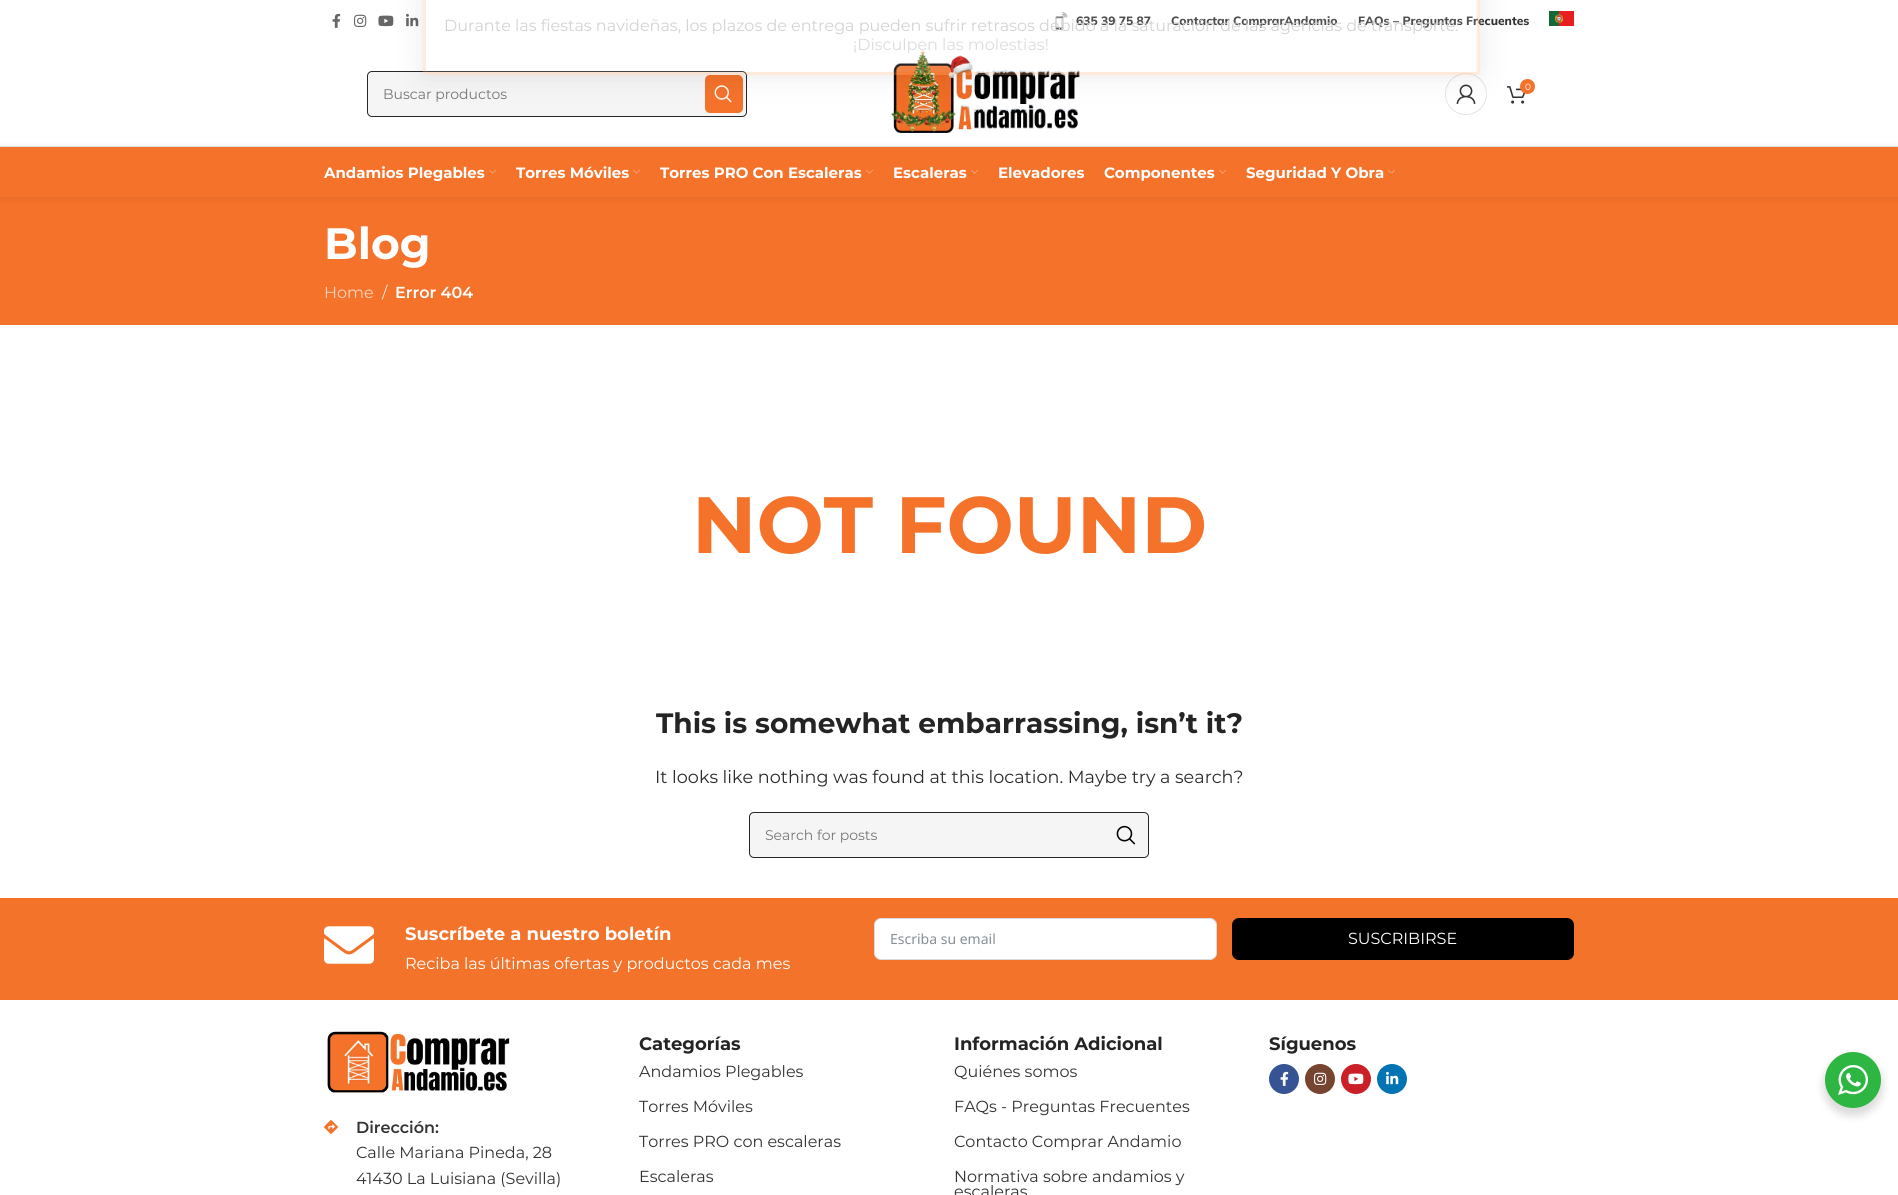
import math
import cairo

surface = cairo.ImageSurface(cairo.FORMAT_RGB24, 1898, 1195)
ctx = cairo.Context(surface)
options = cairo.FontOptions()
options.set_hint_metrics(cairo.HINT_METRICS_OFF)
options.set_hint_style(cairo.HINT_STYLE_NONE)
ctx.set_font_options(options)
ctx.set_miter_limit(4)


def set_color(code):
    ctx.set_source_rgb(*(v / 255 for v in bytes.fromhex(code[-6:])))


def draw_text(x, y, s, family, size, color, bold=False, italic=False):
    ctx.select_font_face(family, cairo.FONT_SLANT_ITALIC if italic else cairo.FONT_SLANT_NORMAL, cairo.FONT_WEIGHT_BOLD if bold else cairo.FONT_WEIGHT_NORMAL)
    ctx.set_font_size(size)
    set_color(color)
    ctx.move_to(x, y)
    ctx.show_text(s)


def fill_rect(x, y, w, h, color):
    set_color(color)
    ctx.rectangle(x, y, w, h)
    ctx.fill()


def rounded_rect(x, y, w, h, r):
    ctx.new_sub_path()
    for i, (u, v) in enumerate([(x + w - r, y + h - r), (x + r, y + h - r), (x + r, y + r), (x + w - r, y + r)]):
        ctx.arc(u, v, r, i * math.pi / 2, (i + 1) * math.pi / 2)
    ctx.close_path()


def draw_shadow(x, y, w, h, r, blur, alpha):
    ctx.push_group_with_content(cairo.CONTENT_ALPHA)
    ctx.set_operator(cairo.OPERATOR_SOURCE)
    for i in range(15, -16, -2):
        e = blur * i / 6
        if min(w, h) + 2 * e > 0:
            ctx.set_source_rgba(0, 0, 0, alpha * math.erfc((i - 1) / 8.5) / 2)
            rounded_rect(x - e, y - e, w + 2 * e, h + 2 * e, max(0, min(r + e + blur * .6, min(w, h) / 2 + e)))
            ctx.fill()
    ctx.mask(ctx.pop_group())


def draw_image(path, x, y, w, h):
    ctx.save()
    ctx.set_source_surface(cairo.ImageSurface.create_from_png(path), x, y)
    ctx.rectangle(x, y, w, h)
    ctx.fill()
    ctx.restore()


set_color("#ffffff")
ctx.paint()
draw_image("assets/img1.png", 332, 13, 9, 15)
draw_image("assets/img2.png", 354, 14, 13, 13)
draw_image("assets/img3.png", 378, 15, 16, 12)
draw_image("assets/img4.png", 406, 13, 13, 14)
draw_image("assets/img5.png", 1055, 12, 13, 18)
draw_text(1076, 25, "635 39 75 87", "Mulish ExtraBold", 12, "#333333")
draw_text(1171, 25, "Contactar ComprarAndamio", "Mulish ExtraBold", 12, "#333333")
draw_text(1358, 25, "FAQs – Preguntas Frecuentes", "Mulish ExtraBold", 12, "#333333")
draw_image("assets/img6.png", 1549, 11, 25, 15)
fill_rect(0, 146, 1898, 1, "#e6e6e6")
draw_image("assets/img7.png", 891, 50, 189, 83)
ctx.arc(1466, 94, 20.5, 0, 2 * math.pi)
set_color("#e4e4e4")
ctx.set_line_width(1)
ctx.stroke()
draw_image("assets/img8.png", 1456, 84, 20, 20)
draw_image("assets/img9.png", 1507, 86, 19, 18)
set_color("#f5722a")
ctx.arc(1527.5, 86.5, 7.5, 0, 2 * math.pi)
ctx.fill()
draw_text(1525, 90, "0", "Montserrat", 9, "#ffffff")
set_color("#f5f5f5")
rounded_rect(367.5, 71.5, 379, 45, 4.5)
ctx.fill_preserve()
set_color("#262626")
ctx.stroke()
draw_text(383, 99, "Buscar productos", "Montserrat", 14, "#777777")
set_color("#f5722a")
rounded_rect(705, 75, 38, 38, 5)
ctx.fill()
draw_image("assets/img10.png", 714, 85, 18, 18)
fill_rect(0, 197, 1898, 128, "#f5722a")
set_color("#000000")
draw_shadow(0, 148, 1898, 50, 0, 4, 0.1)
fill_rect(0, 147, 1898, 50, "#f5722a")
draw_text(324, 178, "Andamios Plegables", "Montserrat", 15, "#ffffff", bold=True)
draw_image("assets/img11.png", 489, 169, 7, 5)
draw_text(516, 178, "Torres Móviles", "Montserrat", 15, "#ffffff", bold=True)
draw_image("assets/img11.png", 633, 169, 7, 5)
draw_text(660, 178, "Torres PRO Con Escaleras", "Montserrat", 15, "#ffffff", bold=True)
draw_image("assets/img11.png", 866, 169, 7, 5)
draw_text(893, 178, "Escaleras", "Montserrat", 15, "#ffffff", bold=True)
draw_image("assets/img11.png", 971, 169, 7, 5)
draw_text(998, 178, "Elevadores", "Montserrat", 15, "#ffffff", bold=True)
draw_text(1104, 178, "Componentes", "Montserrat", 15, "#ffffff", bold=True)
draw_image("assets/img11.png", 1219, 169, 7, 5)
draw_text(1246, 178, "Seguridad Y Obra", "Montserrat", 15, "#ffffff", bold=True)
draw_image("assets/img11.png", 1388, 169, 7, 5)
draw_text(324, 259, "Blog", "Montserrat", 44, "#ffffff", bold=True)
draw_text(324, 298, "Home", "Montserrat", 16, "#fcd5bf")
draw_text(382, 298, "/", "Montserrat", 16, "#fde3d4")
draw_text(395, 298, "Error 404", "Montserrat SemiBold", 16, "#ffffff")
draw_text(692, 553, "NOT FOUND", "Montserrat", 79.75, "#f5722a", bold=True)
draw_text(656, 733, "This is somewhat embarrassing, isn’t it?", "Montserrat", 28, "#242424", bold=True)
draw_text(655, 783, "It looks like nothing was found at this location. Maybe try a search?", "Montserrat", 17.6, "#2b2b2b")
set_color("#f5f5f5")
rounded_rect(749.5, 812.5, 399, 45, 4.5)
ctx.fill_preserve()
set_color("#262626")
ctx.stroke()
draw_text(765, 840, "Search for posts", "Montserrat", 14, "#777777")
draw_image("assets/img12.png", 1116, 825, 20, 20)
fill_rect(0, 898, 1898, 102, "#f3732a")
draw_image("assets/img13.png", 324, 926, 50, 38)
draw_text(405, 940, "Suscríbete a nuestro boletín", "Montserrat", 18, "#ffffff", bold=True)
draw_text(405, 969, "Reciba las últimas ofertas y productos cada mes", "Montserrat", 16, "#ffffff")
rounded_rect(874.5, 918.5, 342, 41, 6.5)
ctx.fill_preserve()
set_color("#dadbdd")
ctx.stroke()
draw_text(890, 944, "Escriba su email", "Noto Sans", 14, "#868e96")
set_color("#000000")
rounded_rect(1232, 918, 342, 42, 7)
ctx.fill()
draw_text(1348, 944, "SUSCRIBIRSE", "Montserrat", 16, "#ffffff")
draw_text(639, 1050, "Categorías", "Montserrat", 18, "#242424", bold=True)
draw_text(639, 1077, "Andamios Plegables", "Montserrat", 16, "#333333")
draw_text(639, 1112, "Torres Móviles", "Montserrat", 16, "#333333")
draw_text(639, 1147, "Torres PRO con escaleras", "Montserrat", 16, "#333333")
draw_text(639, 1182, "Escaleras", "Montserrat", 16, "#333333")
draw_text(954, 1050, "Información Adicional", "Montserrat", 18, "#242424", bold=True)
draw_text(954, 1077, "Quiénes somos", "Montserrat", 16, "#333333")
draw_text(954, 1112, "FAQs - Preguntas Frecuentes", "Montserrat", 16, "#333333")
draw_text(954, 1147, "Contacto Comprar Andamio", "Montserrat", 16, "#333333")
draw_text(954, 1182, "Normativa sobre andamios y", "Montserrat", 16, "#333333")
draw_text(954, 1197, "escaleras", "Montserrat", 16, "#333333")
draw_text(1269, 1050, "Síguenos", "Montserrat", 18, "#242424", bold=True)
set_color("#365493")
ctx.new_path()
ctx.arc(1284, 1079, 15, 0, 2 * math.pi)
ctx.fill()
draw_image("assets/img14.png", 1280, 1071, 9, 15)
set_color("#774430")
ctx.arc(1320, 1079, 15, 0, 2 * math.pi)
ctx.fill()
draw_image("assets/img15.png", 1314, 1072, 13, 13)
set_color("#cb2027")
ctx.arc(1356, 1079, 15, 0, 2 * math.pi)
ctx.fill()
draw_image("assets/img16.png", 1348, 1073, 16, 12)
set_color("#0274b3")
ctx.arc(1392, 1079, 15, 0, 2 * math.pi)
ctx.fill()
draw_image("assets/img17.png", 1386, 1071, 13, 14)
draw_image("assets/img18.png", 327, 1031, 183, 62)
draw_image("assets/img19.png", 324, 1120, 14, 14)
draw_text(356, 1133, "Dirección:", "Montserrat SemiBold", 16, "#333333")
draw_text(356, 1158, "Calle Mariana Pineda, 28", "Montserrat", 16, "#333333")
draw_text(356, 1184, "41430 La Luisiana (Sevilla)", "Montserrat", 16, "#333333")
ctx.save()
ctx.set_fill_rule(cairo.FILL_RULE_EVEN_ODD)
ctx.new_path()
ctx.move_to(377, 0)
ctx.line_to(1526, 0)
ctx.line_to(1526, 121)
ctx.line_to(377, 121)
ctx.close_path()
ctx.move_to(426, -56)
ctx.line_to(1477, -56)
ctx.curve_to(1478.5, -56, 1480, -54.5, 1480, -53)
ctx.line_to(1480, 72)
ctx.curve_to(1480, 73.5, 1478.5, 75, 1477, 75)
ctx.line_to(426, 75)
ctx.curve_to(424.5, 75, 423, 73.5, 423, 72)
ctx.line_to(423, -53)
ctx.curve_to(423, -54.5, 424.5, -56, 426, -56)
ctx.close_path()
ctx.clip()
set_color("#020202")
draw_shadow(423, -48, 1057, 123, 3, 15, 0.09)
ctx.restore()
ctx.set_source_rgba(1, 1, 1, 0.14)
rounded_rect(423, -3, 1057, 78, 3)
ctx.fill()
rounded_rect(424.5, -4.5, 1054, 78, 1.5)
ctx.set_source_rgba(1, 0.4, 0, 0.14)
ctx.set_line_width(3)
ctx.stroke()
draw_text(444, 31, "Durante las fiestas navideñas, los plazos de entrega pueden sufrir retrasos debido a la saturación de las agencias de transporte.", "Montserrat", 16, "#d3d3d3")
draw_text(853, 50, "¡Disculpen las molestias!", "Montserrat", 16, "#dcdcdc")
set_color("#000000")
draw_shadow(1823, 1056, 60, 60, 30, 4, 0.14)
set_color("#2db742")
ctx.arc(1853, 1080, 28, 0, 2 * math.pi)
ctx.fill()
draw_image("assets/img20.png", 1838, 1065, 30, 30)
surface.write_to_png("output.png")
